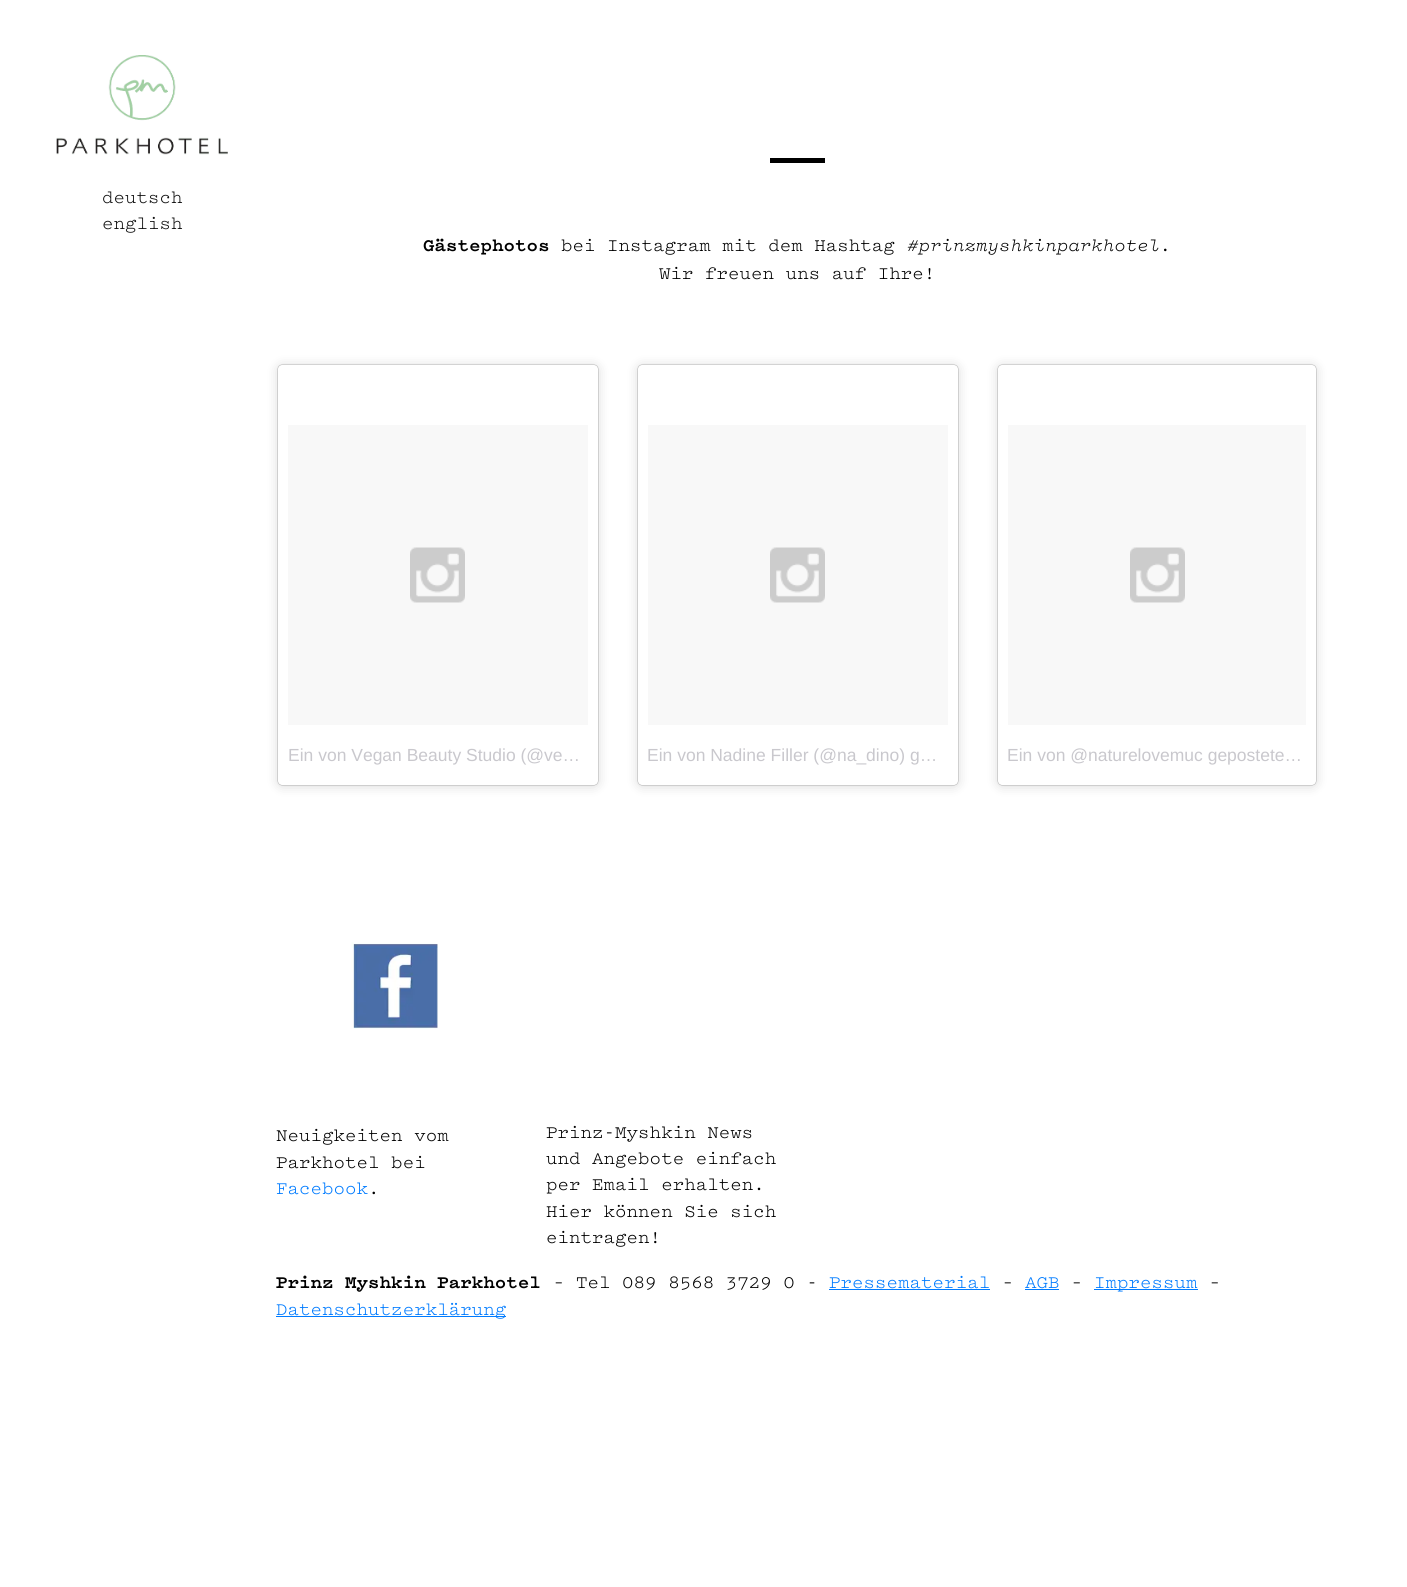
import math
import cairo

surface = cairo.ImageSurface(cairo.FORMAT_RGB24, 1407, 1587)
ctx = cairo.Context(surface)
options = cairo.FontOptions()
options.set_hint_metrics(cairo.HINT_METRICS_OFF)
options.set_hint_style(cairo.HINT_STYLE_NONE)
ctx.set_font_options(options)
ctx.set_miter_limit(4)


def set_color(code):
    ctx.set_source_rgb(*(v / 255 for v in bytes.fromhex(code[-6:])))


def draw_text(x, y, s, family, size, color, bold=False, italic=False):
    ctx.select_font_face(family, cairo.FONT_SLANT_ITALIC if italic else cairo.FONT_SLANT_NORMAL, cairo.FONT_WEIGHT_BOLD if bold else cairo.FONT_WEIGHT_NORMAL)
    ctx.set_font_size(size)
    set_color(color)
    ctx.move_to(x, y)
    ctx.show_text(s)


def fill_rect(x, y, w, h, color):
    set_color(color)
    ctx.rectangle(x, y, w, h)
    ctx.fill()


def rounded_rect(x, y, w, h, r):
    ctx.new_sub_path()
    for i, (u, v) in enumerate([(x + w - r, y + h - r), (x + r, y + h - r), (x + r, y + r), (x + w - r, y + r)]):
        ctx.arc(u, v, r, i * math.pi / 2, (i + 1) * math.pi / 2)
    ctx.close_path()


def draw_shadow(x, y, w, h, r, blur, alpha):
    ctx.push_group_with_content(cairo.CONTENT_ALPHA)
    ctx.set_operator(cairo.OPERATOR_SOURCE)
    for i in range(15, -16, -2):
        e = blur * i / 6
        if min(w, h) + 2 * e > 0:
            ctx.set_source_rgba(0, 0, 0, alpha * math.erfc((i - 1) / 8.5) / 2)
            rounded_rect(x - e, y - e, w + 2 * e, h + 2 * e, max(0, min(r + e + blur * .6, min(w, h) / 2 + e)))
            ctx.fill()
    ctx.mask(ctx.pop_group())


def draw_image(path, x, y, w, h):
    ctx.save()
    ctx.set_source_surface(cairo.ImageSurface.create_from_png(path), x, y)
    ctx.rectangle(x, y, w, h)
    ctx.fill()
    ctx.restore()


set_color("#ffffff")
ctx.paint()
draw_image("assets/img1.png", 56, 55, 172, 100)
draw_text(102, 203, "deutsch", "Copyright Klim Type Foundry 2", 18.75, "#111111")
draw_text(102, 229, "english", "Copyright Klim Type Foundry 2", 18.75, "#111111")
fill_rect(770, 158, 55, 5, "#000000")
draw_text(423, 251, "Gästephotos", "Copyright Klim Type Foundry", 18.75, "#000000")
draw_text(561, 251, "bei Instagram mit dem Hashtag", "Copyright Klim Type Foundry 2", 18.75, "#000000")
draw_text(907, 251, "#prinzmyshkinparkhotel.", "Copyright Klim Type Foundry", 18.75, "#000000", italic=True)
draw_text(659, 279, "Wir freuen uns auf Ihre!", "Copyright Klim Type Foundry 2", 18.75, "#000000")
set_color("#000000")
draw_shadow(278, 366, 320, 420, 4, 6, 0.15)
draw_shadow(278, 365, 320, 420, 4, 0.5, 0.5)
set_color("#ffffff")
rounded_rect(278, 365, 320, 420, 4)
ctx.fill()
fill_rect(288, 425, 300, 300, "#f8f8f8")
draw_image("assets/img2.png", 410, 547, 55, 56)
draw_text(288, 761, "Ein von Vegan Beauty Studio (@ve…", "Liberation Sans", 17.5, "#c9c8cd")
set_color("#000000")
draw_shadow(638, 366, 320, 420, 4, 6, 0.15)
draw_shadow(638, 365, 320, 420, 4, 0.5, 0.5)
set_color("#ffffff")
rounded_rect(638, 365, 320, 420, 4)
ctx.fill()
fill_rect(648, 425, 300, 300, "#f8f8f8")
draw_image("assets/img2.png", 770, 547, 55, 56)
draw_text(647, 761, "Ein von Nadine Filler (@na_dino) g…", "Liberation Sans", 17.5, "#c9c8cd")
set_color("#000000")
draw_shadow(998, 366, 318, 420, 4, 6, 0.15)
draw_shadow(998, 365, 318, 420, 4, 0.5, 0.5)
set_color("#ffffff")
rounded_rect(998, 365, 318, 420, 4)
ctx.fill()
fill_rect(1008, 425, 298, 300, "#f8f8f8")
draw_image("assets/img3.png", 1130, 547, 55, 56)
draw_text(1007, 761, "Ein von @naturelovemuc gepostete…", "Liberation Sans", 17.5, "#c9c8cd")
draw_image("assets/img4.png", 351, 942, 87, 87)
draw_text(276, 1141, "Neuigkeiten vom", "Copyright Klim Type Foundry 2", 18.75, "#000000")
draw_text(276, 1168, "Parkhotel bei", "Copyright Klim Type Foundry 2", 18.75, "#000000")
draw_text(276, 1194, "Facebook", "Copyright Klim Type Foundry 2", 18.75, "#007bff")
draw_text(368, 1194, ".", "Copyright Klim Type Foundry 2", 18.75, "#000000")
draw_text(546, 1138, "Prinz-Myshkin News", "Copyright Klim Type Foundry 2", 18.75, "#000000")
draw_text(546, 1164, "und Angebote einfach", "Copyright Klim Type Foundry 2", 18.75, "#000000")
draw_text(546, 1190, "per Email erhalten.", "Copyright Klim Type Foundry 2", 18.75, "#000000")
draw_text(546, 1217, "Hier können Sie sich", "Copyright Klim Type Foundry 2", 18.75, "#000000")
draw_text(546, 1243, "eintragen!", "Copyright Klim Type Foundry 2", 18.75, "#000000")
draw_text(276, 1288, "Prinz Myshkin Parkhotel", "Copyright Klim Type Foundry", 18.75, "#000000")
draw_text(553, 1288, "– Tel 089 8568 3729 0 -", "Copyright Klim Type Foundry 2", 18.75, "#000000")
draw_text(829, 1288, "Pressematerial", "Copyright Klim Type Foundry 2", 18.75, "#007bff")
fill_rect(829, 1289, 161, 1, "#007bff")
draw_text(1002, 1288, "–", "Copyright Klim Type Foundry 2", 18.75, "#000000")
draw_text(1025, 1288, "AGB", "Copyright Klim Type Foundry 2", 18.75, "#007bff")
fill_rect(1025, 1289, 34, 1, "#007bff")
draw_text(1071, 1288, "–", "Copyright Klim Type Foundry 2", 18.75, "#000000")
fill_rect(1094, 1289, 104, 1, "#007bff")
draw_text(1094, 1288, "Impressum", "Copyright Klim Type Foundry 2", 18.75, "#007bff")
draw_text(1209, 1288, "–", "Copyright Klim Type Foundry 2", 18.75, "#000000")
fill_rect(276, 1316, 230, 1, "#007bff")
draw_text(276, 1315, "Datenschutzerklärung", "Copyright Klim Type Foundry 2", 18.75, "#007bff")
surface.write_to_png("output.png")
